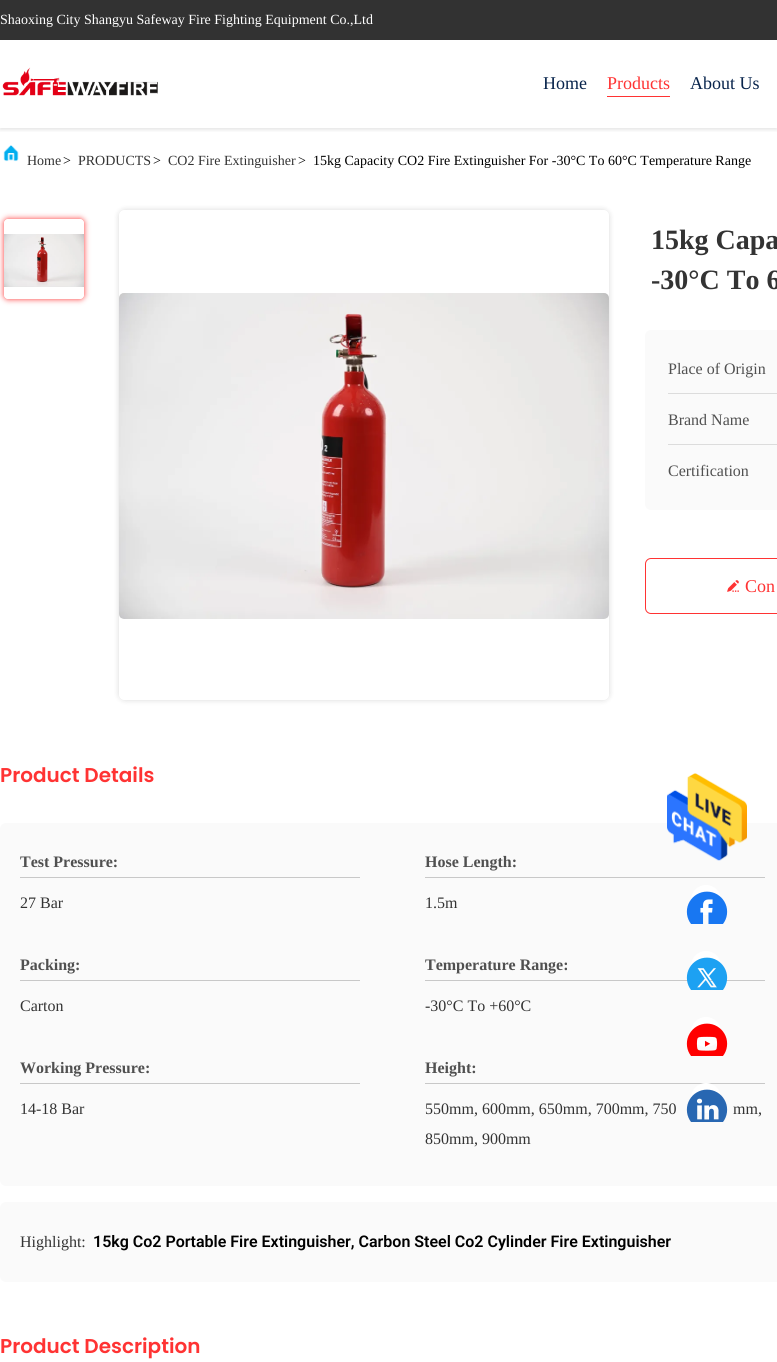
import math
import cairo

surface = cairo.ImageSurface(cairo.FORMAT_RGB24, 777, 1362)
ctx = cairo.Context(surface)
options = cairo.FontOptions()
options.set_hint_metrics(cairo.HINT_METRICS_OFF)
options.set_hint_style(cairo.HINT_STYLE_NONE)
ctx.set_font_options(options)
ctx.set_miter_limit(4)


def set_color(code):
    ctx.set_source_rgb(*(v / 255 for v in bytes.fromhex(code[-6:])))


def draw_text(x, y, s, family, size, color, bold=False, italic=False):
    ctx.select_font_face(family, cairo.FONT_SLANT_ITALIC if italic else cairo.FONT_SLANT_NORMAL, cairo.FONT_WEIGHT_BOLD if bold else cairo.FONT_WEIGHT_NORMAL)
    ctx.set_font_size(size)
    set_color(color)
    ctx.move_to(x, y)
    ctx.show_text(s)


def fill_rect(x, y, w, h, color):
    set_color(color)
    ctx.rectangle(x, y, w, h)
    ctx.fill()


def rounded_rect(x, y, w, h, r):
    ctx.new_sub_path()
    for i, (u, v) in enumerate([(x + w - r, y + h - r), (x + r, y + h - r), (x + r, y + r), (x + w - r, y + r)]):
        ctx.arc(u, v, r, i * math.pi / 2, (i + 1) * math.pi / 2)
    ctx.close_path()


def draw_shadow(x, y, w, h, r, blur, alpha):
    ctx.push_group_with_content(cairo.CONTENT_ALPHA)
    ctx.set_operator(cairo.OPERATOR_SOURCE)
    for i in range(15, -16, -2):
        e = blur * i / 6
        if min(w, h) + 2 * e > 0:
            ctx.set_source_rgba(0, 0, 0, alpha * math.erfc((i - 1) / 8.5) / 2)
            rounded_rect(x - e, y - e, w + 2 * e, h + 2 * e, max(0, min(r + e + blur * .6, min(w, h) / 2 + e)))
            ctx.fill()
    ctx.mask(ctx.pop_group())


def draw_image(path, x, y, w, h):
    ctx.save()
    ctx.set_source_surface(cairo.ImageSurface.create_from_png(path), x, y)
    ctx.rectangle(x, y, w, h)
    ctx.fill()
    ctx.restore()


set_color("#ffffff")
ctx.paint()
fill_rect(0, 0, 777, 40, "#323232")
draw_text(0, 24, "Shaoxing City Shangyu Safeway Fire Fighting Equipment Co.,Ltd", "Liberation Serif", 14, "#ffffff")
ctx.save()
ctx.rectangle(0, 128, 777, 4)
ctx.clip()
set_color("#000000")
draw_shadow(0, 42, 777, 88, 0, 2, 0.1)
ctx.restore()
draw_image("assets/img1.png", 2, 67, 156, 29)
draw_text(543, 89, "Home", "Liberation Serif", 18, "#08244c")
fill_rect(607, 96, 63, 1, "#ff3333")
draw_text(607, 89, "Products", "Liberation Serif", 18, "#ff3333")
draw_text(690, 89, "About Us", "Liberation Serif", 18, "#08244c")
draw_image("assets/img2.png", 3, 145, 16, 17)
draw_text(27, 165, "Home", "Liberation Serif", 14, "#333333")
draw_text(63, 165, ">", "Liberation Serif", 14, "#000000")
draw_text(78, 165, "PRODUCTS", "Liberation Serif", 14, "#333333")
draw_text(153, 165, ">", "Liberation Serif", 14, "#000000")
draw_text(168, 165, "CO2 Fire Extinguisher", "Liberation Serif", 14, "#333333")
draw_text(298, 165, ">", "Liberation Serif", 14, "#000000")
draw_text(313, 165, "15kg Capacity CO2 Fire Extinguisher For -30°C To 60°C Temperature Range", "Liberation Serif", 14, "#000000")
ctx.save()
ctx.set_fill_rule(cairo.FILL_RULE_EVEN_ODD)
ctx.new_path()
ctx.move_to(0, 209)
ctx.line_to(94, 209)
ctx.line_to(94, 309)
ctx.line_to(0, 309)
ctx.close_path()
ctx.move_to(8, 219)
ctx.line_to(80, 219)
ctx.curve_to(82, 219, 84, 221, 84, 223)
ctx.line_to(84, 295)
ctx.curve_to(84, 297, 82, 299, 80, 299)
ctx.line_to(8, 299)
ctx.curve_to(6, 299, 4, 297, 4, 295)
ctx.line_to(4, 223)
ctx.curve_to(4, 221, 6, 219, 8, 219)
ctx.close_path()
ctx.clip()
set_color("#ff3333")
draw_shadow(4, 219, 80, 80, 4, 3, 1)
ctx.restore()
draw_image("assets/img3.png", 4, 234, 80, 53)
ctx.save()
ctx.set_fill_rule(cairo.FILL_RULE_EVEN_ODD)
ctx.new_path()
ctx.move_to(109, 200)
ctx.line_to(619, 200)
ctx.line_to(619, 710)
ctx.line_to(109, 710)
ctx.close_path()
ctx.move_to(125, 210)
ctx.line_to(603, 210)
ctx.curve_to(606.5, 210, 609, 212.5, 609, 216)
ctx.line_to(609, 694)
ctx.curve_to(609, 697.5, 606.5, 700, 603, 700)
ctx.line_to(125, 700)
ctx.curve_to(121.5, 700, 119, 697.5, 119, 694)
ctx.line_to(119, 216)
ctx.curve_to(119, 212.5, 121.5, 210, 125, 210)
ctx.close_path()
ctx.clip()
set_color("#000000")
draw_shadow(119, 210, 490, 490, 6, 3, 0.15)
ctx.restore()
draw_image("assets/img4.png", 119, 293, 490, 326)
draw_text(651, 249, "15kg Capa", "Liberation Serif", 28, "#333333", bold=True)
draw_text(651, 289, "-30°C To 6", "Liberation Serif", 28, "#333333", bold=True)
set_color("#fafafa")
rounded_rect(645, 330, 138, 180, 6)
ctx.fill()
fill_rect(668, 393, 109, 1, "#dcdcdc")
draw_text(668, 374, "Place of Origin", "Liberation Serif", 16, "#505050")
fill_rect(668, 444, 109, 1, "#dcdcdc")
draw_text(668, 425, "Brand Name", "Liberation Serif", 16, "#505050")
draw_text(668, 476, "Certification", "Liberation Serif", 16, "#505050")
rounded_rect(645.5, 558.5, 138, 55, 5.5)
set_color("#ff3333")
ctx.set_line_width(1)
ctx.stroke()
draw_image("assets/img5.png", 727, 580, 12, 12)
draw_text(745, 592, "Con", "Liberation Serif", 18, "#ff3333")
draw_text(0, 782, "Product Details", "Poppins SemiBold", 20, "#ff3333")
set_color("#fafafa")
rounded_rect(0, 823, 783, 363, 6)
ctx.fill()
fill_rect(20, 877, 340, 1, "#c8c8c8")
draw_text(20, 867, "Test Pressure:", "Liberation Serif", 16, "#505050", bold=True)
draw_text(20, 908, "27 Bar", "Liberation Serif", 16, "#333333")
fill_rect(425, 877, 340, 1, "#c8c8c8")
draw_text(425, 867, "Hose Length:", "Liberation Serif", 16, "#505050", bold=True)
draw_text(425, 908, "1.5m", "Liberation Serif", 16, "#333333")
fill_rect(20, 980, 340, 1, "#c8c8c8")
draw_text(20, 970, "Packing:", "Liberation Serif", 16, "#505050", bold=True)
draw_text(20, 1011, "Carton", "Liberation Serif", 16, "#333333")
fill_rect(425, 980, 340, 1, "#c8c8c8")
draw_text(425, 970, "Temperature Range:", "Liberation Serif", 16, "#505050", bold=True)
draw_text(425, 1011, "-30°C To +60°C", "Liberation Serif", 16, "#333333")
fill_rect(20, 1083, 340, 1, "#c8c8c8")
draw_text(20, 1073, "Working Pressure:", "Liberation Serif", 16, "#505050", bold=True)
draw_text(20, 1114, "14-18 Bar", "Liberation Serif", 16, "#333333")
fill_rect(425, 1083, 340, 1, "#c8c8c8")
draw_text(425, 1073, "Height:", "Liberation Serif", 16, "#505050", bold=True)
draw_text(425, 1114, "550mm, 600mm, 650mm, 700mm, 750", "Liberation Serif", 16, "#333333")
draw_text(733, 1114, "mm,", "Liberation Serif", 16, "#333333")
draw_text(425, 1144, "850mm, 900mm", "Liberation Serif", 16, "#333333")
set_color("#fafafa")
rounded_rect(0, 1202, 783, 80, 6)
ctx.fill()
draw_text(20, 1247, "Highlight:", "Liberation Serif", 16, "#333333")
draw_text(93, 1247, "15kg Co2 Portable Fire Extinguisher, Carbon Steel Co2 Cylinder Fire Extinguisher", "Roboto SemiBold", 16, "#000000")
draw_text(0, 1353, "Product Description", "Poppins SemiBold", 20, "#ff3333")
draw_image("assets/img6.png", 667, 773, 80, 88)
set_color("#ffffff")
ctx.arc(706, 900, 15, 0, 2 * math.pi)
ctx.fill()
draw_image("assets/img7.png", 686, 891, 42, 33)
ctx.arc(706, 966, 15, 0, 2 * math.pi)
ctx.fill()
draw_image("assets/img8.png", 686, 957, 42, 33)
ctx.arc(706, 1032, 15, 0, 2 * math.pi)
ctx.fill()
draw_image("assets/img9.png", 686, 1023, 42, 33)
ctx.arc(706, 1098, 15, 0, 2 * math.pi)
ctx.fill()
draw_image("assets/img10.png", 686, 1089, 42, 33)
surface.write_to_png("output.png")
